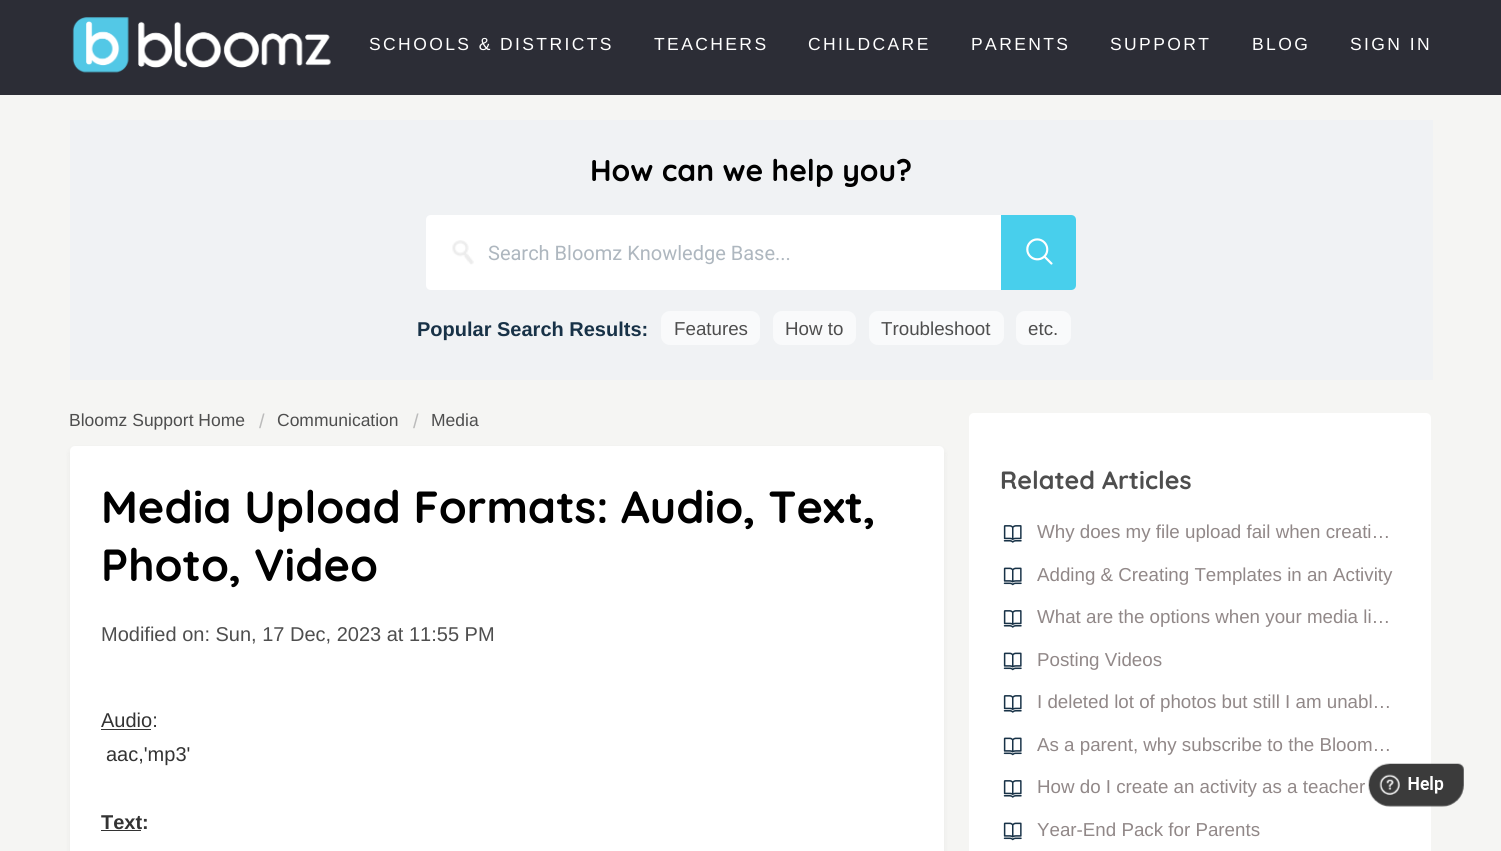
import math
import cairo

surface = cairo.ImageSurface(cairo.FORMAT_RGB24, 1501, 851)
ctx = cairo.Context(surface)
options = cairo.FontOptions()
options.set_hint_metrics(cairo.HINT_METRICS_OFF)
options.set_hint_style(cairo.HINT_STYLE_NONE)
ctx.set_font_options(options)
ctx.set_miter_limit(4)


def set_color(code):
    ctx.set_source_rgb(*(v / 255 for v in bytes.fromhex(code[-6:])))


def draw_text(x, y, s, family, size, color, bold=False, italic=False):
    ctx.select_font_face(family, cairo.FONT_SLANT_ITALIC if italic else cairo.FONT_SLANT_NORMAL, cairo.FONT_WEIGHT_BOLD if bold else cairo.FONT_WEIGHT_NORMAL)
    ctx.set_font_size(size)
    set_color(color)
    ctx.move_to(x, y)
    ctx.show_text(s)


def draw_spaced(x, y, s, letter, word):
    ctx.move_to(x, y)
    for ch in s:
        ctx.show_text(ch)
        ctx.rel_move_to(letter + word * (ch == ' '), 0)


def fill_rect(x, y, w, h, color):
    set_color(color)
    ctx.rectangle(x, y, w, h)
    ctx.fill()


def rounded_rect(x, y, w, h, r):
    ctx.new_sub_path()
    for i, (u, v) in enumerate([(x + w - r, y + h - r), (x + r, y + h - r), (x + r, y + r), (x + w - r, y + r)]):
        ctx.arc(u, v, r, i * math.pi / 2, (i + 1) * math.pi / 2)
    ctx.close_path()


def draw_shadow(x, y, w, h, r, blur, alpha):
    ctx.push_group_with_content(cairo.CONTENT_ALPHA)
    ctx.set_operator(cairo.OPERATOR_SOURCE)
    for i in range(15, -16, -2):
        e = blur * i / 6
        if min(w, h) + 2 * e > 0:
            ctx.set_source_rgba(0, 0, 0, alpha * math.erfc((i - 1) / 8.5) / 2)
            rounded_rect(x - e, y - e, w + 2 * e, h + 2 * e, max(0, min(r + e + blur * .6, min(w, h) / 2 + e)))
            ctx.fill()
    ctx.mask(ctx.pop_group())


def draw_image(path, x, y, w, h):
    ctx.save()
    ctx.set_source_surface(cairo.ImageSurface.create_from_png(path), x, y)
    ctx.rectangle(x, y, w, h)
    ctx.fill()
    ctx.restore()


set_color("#f5f5f3")
ctx.paint()
fill_rect(0, 0, 1501, 95, "#2c2d36")
draw_image("assets/img1.png", 72, 17, 259, 56)
ctx.select_font_face("Liberation Sans")
ctx.set_font_size(17.5)
set_color("#ffffff")
draw_spaced(369, 50, "SCHOOLS & DISTRICTS", 2.4, 0)
draw_spaced(654, 50, "TEACHERS", 2.4, 0)
draw_spaced(808, 50, "CHILDCARE", 2.4, 0)
draw_spaced(971, 50, "PARENTS", 2.4, 0)
draw_spaced(1110, 50, "SUPPORT", 2.4, 0)
draw_spaced(1252, 50, "BLOG", 2.4, 0)
draw_spaced(1350, 50, "SIGN IN", 2.4, 0)
fill_rect(70, 120, 1363, 260, "#f0f2f4")
draw_text(590, 181, "How can we help you?", "Quicksand", 30, "#000000", bold=True)
set_color("#ffffff")
ctx.new_path()
ctx.move_to(431, 215)
ctx.line_to(1001, 215)
ctx.line_to(1001, 290)
ctx.line_to(431, 290)
ctx.curve_to(428, 290, 426, 288, 426, 285)
ctx.line_to(426, 220)
ctx.curve_to(426, 217, 428, 215, 431, 215)
ctx.close_path()
ctx.fill()
draw_image("assets/img2.png", 452, 240, 22, 25)
draw_text(488, 260, "Search Bloomz Knowledge Base...", "Roboto", 20, "#aeb7bf")
set_color("#48cfec")
ctx.new_path()
ctx.move_to(1001, 215)
ctx.line_to(1071, 215)
ctx.curve_to(1074, 215, 1076, 217, 1076, 220)
ctx.line_to(1076, 285)
ctx.curve_to(1076, 288, 1074, 290, 1071, 290)
ctx.line_to(1001, 290)
ctx.close_path()
ctx.fill()
draw_image("assets/img3.png", 1026, 238, 27, 27)
draw_text(417, 336, "Popular Search Results:", "Liberation Sans", 20, "#183247", bold=True)
set_color("#f9fafb")
rounded_rect(661, 311, 99, 34, 9)
ctx.fill()
draw_text(674, 335, "Features", "Liberation Sans", 18.75, "#4e4e4e")
set_color("#f9fafb")
rounded_rect(773, 311, 83, 34, 9)
ctx.fill()
draw_text(785, 335, "How to", "Liberation Sans", 18.75, "#4e4e4e")
set_color("#f9fafb")
rounded_rect(869, 311, 135, 34, 9)
ctx.fill()
draw_text(881, 335, "Troubleshoot", "Liberation Sans", 18.75, "#4e4e4e")
set_color("#f9fafb")
rounded_rect(1016, 311, 55, 34, 9)
ctx.fill()
draw_text(1028, 335, "etc.", "Liberation Sans", 18.75, "#4e4e4e")
draw_text(69, 426, "Bloomz Support Home", "Liberation Sans", 17.5, "#4e4e4e")
draw_text(259, 428, "/", "Liberation Sans", 20, "#bbbbbb")
draw_text(277, 426, "Communication", "Liberation Sans", 17.5, "#4e4e4e")
draw_text(413, 428, "/", "Liberation Sans", 20, "#bbbbbb")
draw_text(431, 426, "Media", "Liberation Sans", 17.5, "#4e4e4e")
set_color("#000000")
draw_shadow(70, 449, 874, 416, 5, 3, 0.05)
set_color("#ffffff")
rounded_rect(70, 446, 874, 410, 5)
ctx.fill()
draw_text(101, 523, "Media Upload Formats: Audio, Text,", "Quicksand", 45, "#000000", bold=True)
draw_text(101, 581, "Photo, Video", "Quicksand", 45, "#000000", bold=True)
draw_text(101, 641, "Modified on: Sun, 17 Dec, 2023 at 11:55 PM", "Liberation Sans", 20, "#4e4e4e")
draw_text(101, 727, "Audio:", "Liberation Sans", 20, "#333333")
fill_rect(101, 729, 50, 1, "#333333")
draw_text(106, 761, "aac,'mp3'", "Liberation Sans", 20, "#333333")
ctx.save()
ctx.rectangle(101, 674, 787, 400)
ctx.clip()
draw_text(101, 829, "Text", "Liberation Sans", 20, "#333333", bold=True)
ctx.restore()
fill_rect(101, 830, 40, 1, "#333333")
draw_text(142, 829, ":", "Liberation Sans", 20, "#333333", bold=True)
set_color("#ffffff")
rounded_rect(969, 413, 462, 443, 5)
ctx.fill()
draw_text(1000, 489, "Related Articles", "Quicksand", 25, "#4e4e4e", bold=True)
draw_image("assets/img4.png", 1003, 525, 19, 18)
draw_text(1037, 538, "Why does my file upload fail when creati…", "Liberation Sans", 18.75, "#918888")
draw_image("assets/img5.png", 1003, 567, 19, 19)
draw_text(1037, 581, "Adding & Creating Templates in an Activity", "Liberation Sans", 18.75, "#918888")
draw_image("assets/img4.png", 1003, 610, 19, 18)
draw_text(1037, 623, "What are the options when your media li…", "Liberation Sans", 18.75, "#918888")
draw_image("assets/img5.png", 1003, 652, 19, 19)
draw_text(1037, 666, "Posting Videos", "Liberation Sans", 18.75, "#918888")
draw_image("assets/img4.png", 1003, 695, 19, 18)
draw_text(1037, 708, "I deleted lot of photos but still I am unabl…", "Liberation Sans", 18.75, "#918888")
draw_image("assets/img5.png", 1003, 737, 19, 19)
draw_text(1037, 751, "As a parent, why subscribe to the Bloom…", "Liberation Sans", 18.75, "#918888")
draw_image("assets/img4.png", 1003, 780, 19, 18)
draw_text(1037, 793, "How do I create an activity as a teacher", "Liberation Sans", 18.75, "#918888")
draw_image("assets/img5.png", 1003, 822, 19, 19)
draw_text(1037, 836, "Year-End Pack for Parents", "Liberation Sans", 18.75, "#918888")
draw_image("assets/img6.png", 1368, 763, 96, 44)
surface.write_to_png("output.png")
